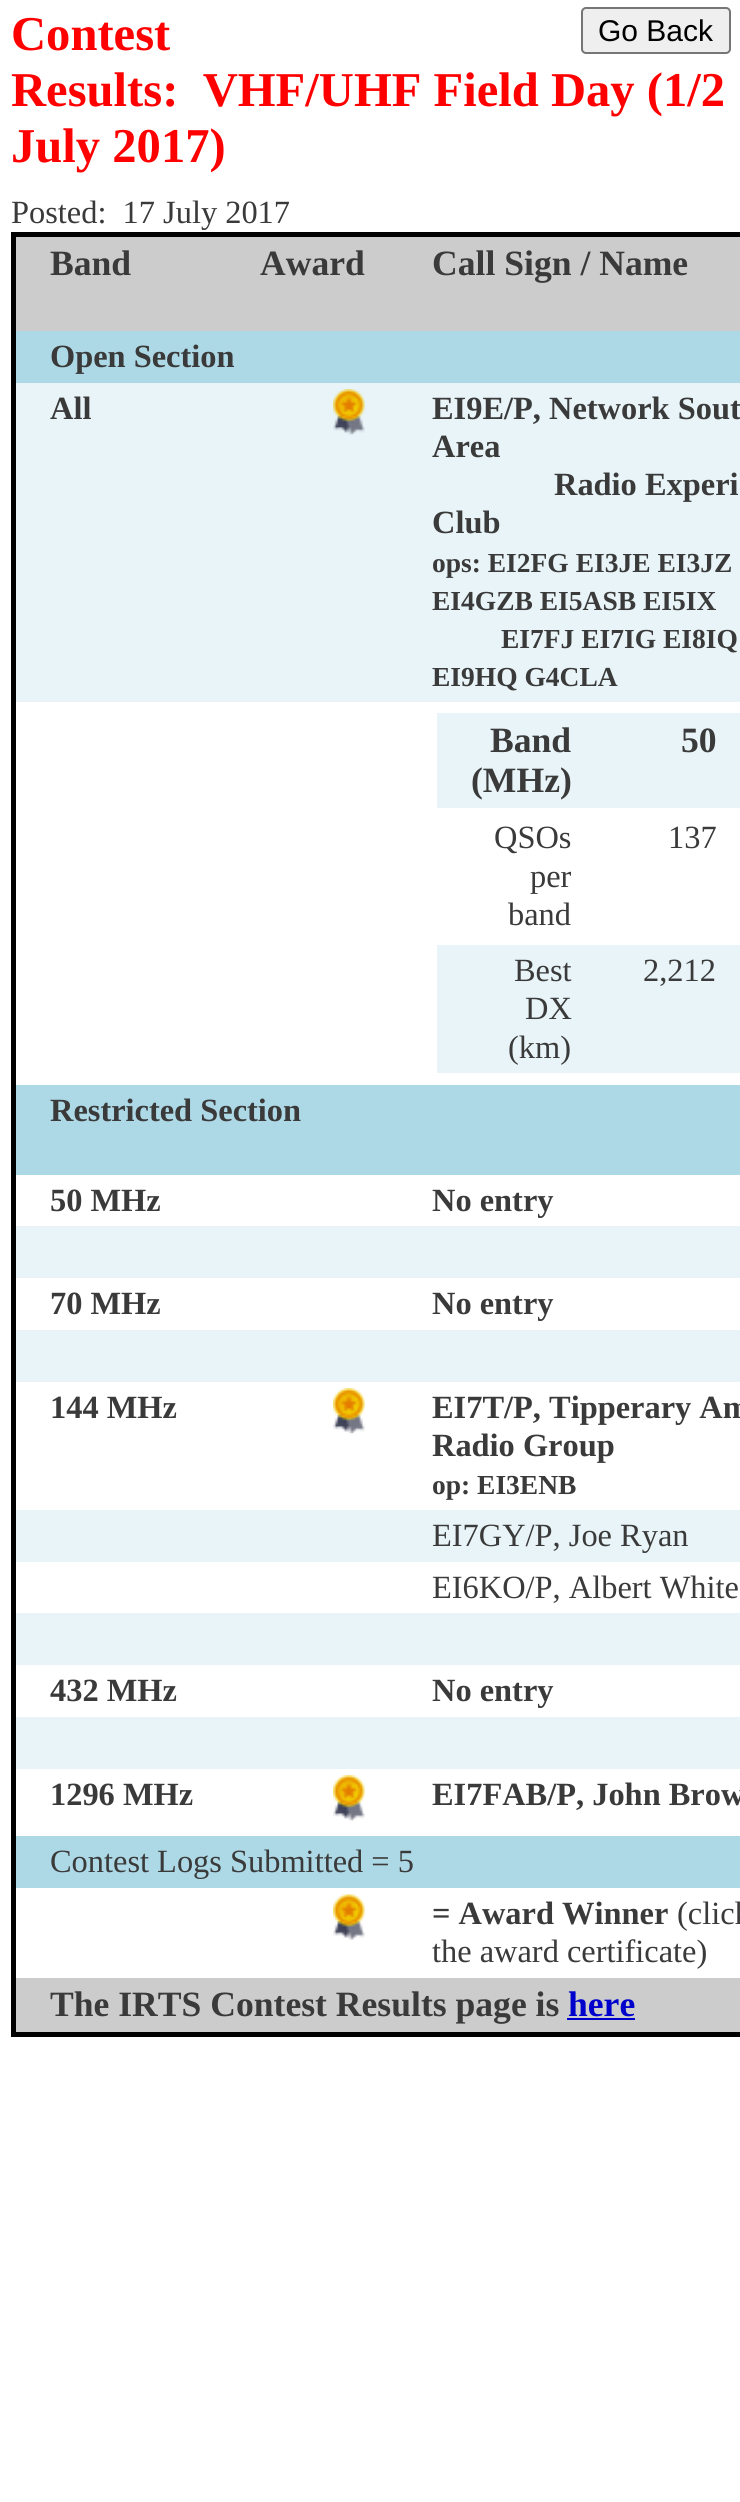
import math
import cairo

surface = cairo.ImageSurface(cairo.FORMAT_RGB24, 740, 2502)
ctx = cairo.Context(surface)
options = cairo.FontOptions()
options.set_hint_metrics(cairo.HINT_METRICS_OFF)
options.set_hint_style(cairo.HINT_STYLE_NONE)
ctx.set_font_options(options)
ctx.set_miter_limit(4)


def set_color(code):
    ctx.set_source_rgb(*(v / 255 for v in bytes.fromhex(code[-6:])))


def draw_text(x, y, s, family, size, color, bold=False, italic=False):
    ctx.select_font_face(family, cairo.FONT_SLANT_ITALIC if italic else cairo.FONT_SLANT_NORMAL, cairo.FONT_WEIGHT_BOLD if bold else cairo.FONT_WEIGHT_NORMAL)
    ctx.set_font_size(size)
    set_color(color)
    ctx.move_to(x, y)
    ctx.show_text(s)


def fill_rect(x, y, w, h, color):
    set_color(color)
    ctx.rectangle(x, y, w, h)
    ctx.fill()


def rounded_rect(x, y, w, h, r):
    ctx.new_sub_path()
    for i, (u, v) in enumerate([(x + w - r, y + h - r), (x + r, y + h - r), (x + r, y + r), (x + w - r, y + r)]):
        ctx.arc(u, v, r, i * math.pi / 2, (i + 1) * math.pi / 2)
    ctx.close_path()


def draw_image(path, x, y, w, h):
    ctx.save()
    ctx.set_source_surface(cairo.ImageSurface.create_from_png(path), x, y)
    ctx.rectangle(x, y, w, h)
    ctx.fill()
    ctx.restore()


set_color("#ffffff")
ctx.paint()
draw_text(11, 50, "Contest", "Liberation Serif", 48.6, "#ff0000", bold=True)
draw_text(11, 106, "Results:  VHF/UHF Field Day (1/2", "Liberation Serif", 48.6, "#ff0000", bold=True)
draw_text(11, 162, "July 2017)", "Liberation Serif", 48.6, "#ff0000", bold=True)
set_color("#efefef")
rounded_rect(582, 8, 148, 45, 4)
ctx.fill_preserve()
set_color("#767676")
ctx.stroke()
draw_text(598, 41, "Go Back", "Liberation Sans", 30, "#000000")
draw_text(11, 223, "Posted:  17 July 2017", "Liberation Serif", 32.4, "#3a3a3a")
fill_rect(11, 232, 729, 5, "#000000")
fill_rect(11, 2032, 729, 5, "#000000")
fill_rect(11, 232, 5, 1804, "#000000")
fill_rect(16, 237, 724, 94, "#cccccc")
draw_text(50, 275, "Band", "Liberation Serif", 35.6, "#3a3a3a", bold=True)
draw_text(260, 275, "Award", "Liberation Serif", 35.6, "#3a3a3a", bold=True)
draw_text(432, 275, "Call Sign / Name", "Liberation Serif", 35.6, "#3a3a3a", bold=True)
fill_rect(16, 331, 724, 52, "#add8e6")
draw_text(50, 367, "Open Section", "Liberation Serif", 32.4, "#3a3a3a", bold=True)
fill_rect(16, 383, 724, 319, "#e8f4f8")
draw_text(50, 419, "All", "Liberation Serif", 32.4, "#3a3a3a", bold=True)
draw_image("assets/img1.png", 333, 389, 32, 46)
draw_text(432, 419, "EI9E/P, Network Sout", "Liberation Serif", 32.4, "#3a3a3a", bold=True)
draw_text(432, 457, "Area", "Liberation Serif", 32.4, "#3a3a3a", bold=True)
draw_text(554, 495, "Radio Experi", "Liberation Serif", 32.4, "#3a3a3a", bold=True)
draw_text(432, 533, "Club", "Liberation Serif", 32.4, "#3a3a3a", bold=True)
draw_text(432, 572, "ops: EI2FG EI3JE EI3JZ", "Liberation Serif", 27.5, "#3a3a3a", bold=True)
draw_text(432, 610, "EI4GZB EI5ASB EI5IX", "Liberation Serif", 27.5, "#3a3a3a", bold=True)
draw_text(501, 648, "EI7FJ EI7IG EI8IQ", "Liberation Serif", 27.5, "#3a3a3a", bold=True)
draw_text(432, 686, "EI9HQ G4CLA", "Liberation Serif", 27.5, "#3a3a3a", bold=True)
fill_rect(437, 713, 303, 95, "#e8f4f8")
draw_text(490, 752, "Band", "Liberation Serif", 35.6, "#3a3a3a", bold=True)
draw_text(471, 792, "(MHz)", "Liberation Serif", 35.6, "#3a3a3a", bold=True)
draw_text(681, 752, "50", "Liberation Serif", 35.6, "#3a3a3a", bold=True)
draw_text(494, 848, "QSOs", "Liberation Serif", 32.4, "#3a3a3a")
draw_text(530, 887, "per", "Liberation Serif", 32.4, "#3a3a3a")
draw_text(508, 925, "band", "Liberation Serif", 32.4, "#3a3a3a")
draw_text(668, 848, "137", "Liberation Serif", 32.4, "#3a3a3a")
fill_rect(437, 945, 303, 128, "#e8f4f8")
draw_text(514, 981, "Best", "Liberation Serif", 32.4, "#3a3a3a")
draw_text(525, 1019, "DX", "Liberation Serif", 32.4, "#3a3a3a")
draw_text(508, 1058, "(km)", "Liberation Serif", 32.4, "#3a3a3a")
draw_text(643, 981, "2,212", "Liberation Serif", 32.4, "#3a3a3a")
fill_rect(16, 1085, 724, 90, "#add8e6")
draw_text(50, 1121, "Restricted Section", "Liberation Serif", 32.4, "#3a3a3a", bold=True)
draw_text(50, 1211, "50 MHz", "Liberation Serif", 32.4, "#3a3a3a", bold=True)
draw_text(432, 1211, "No entry", "Liberation Serif", 32.4, "#3a3a3a", bold=True)
fill_rect(16, 1226, 724, 52, "#e8f4f8")
draw_text(50, 1314, "70 MHz", "Liberation Serif", 32.4, "#3a3a3a", bold=True)
draw_text(432, 1314, "No entry", "Liberation Serif", 32.4, "#3a3a3a", bold=True)
fill_rect(16, 1330, 724, 52, "#e8f4f8")
draw_text(50, 1418, "144 MHz", "Liberation Serif", 32.4, "#3a3a3a", bold=True)
draw_image("assets/img2.png", 333, 1388, 32, 46)
draw_text(432, 1418, "EI7T/P, Tipperary Am", "Liberation Serif", 32.4, "#3a3a3a", bold=True)
draw_text(432, 1456, "Radio Group", "Liberation Serif", 32.4, "#3a3a3a", bold=True)
draw_text(432, 1494, "op: EI3ENB", "Liberation Serif", 27.5, "#3a3a3a", bold=True)
fill_rect(16, 1510, 724, 52, "#e8f4f8")
draw_text(432, 1546, "EI7GY/P, Joe Ryan", "Liberation Serif", 32.4, "#3a3a3a")
draw_text(432, 1598, "EI6KO/P, Albert White", "Liberation Serif", 32.4, "#3a3a3a")
fill_rect(16, 1613, 724, 52, "#e8f4f8")
draw_text(50, 1701, "432 MHz", "Liberation Serif", 32.4, "#3a3a3a", bold=True)
draw_text(432, 1701, "No entry", "Liberation Serif", 32.4, "#3a3a3a", bold=True)
fill_rect(16, 1717, 724, 52, "#e8f4f8")
draw_text(50, 1805, "1296 MHz", "Liberation Serif", 32.4, "#3a3a3a", bold=True)
draw_image("assets/img2.png", 333, 1775, 32, 46)
draw_text(432, 1805, "EI7FAB/P, John Brow", "Liberation Serif", 32.4, "#3a3a3a", bold=True)
fill_rect(16, 1836, 724, 52, "#add8e6")
draw_text(50, 1872, "Contest Logs Submitted = 5", "Liberation Serif", 32.4, "#3a3a3a")
draw_image("assets/img3.png", 333, 1894, 32, 46)
draw_text(432, 1924, "= Award Winner", "Liberation Serif", 32.4, "#3a3a3a", bold=True)
draw_text(677, 1924, "(click", "Liberation Serif", 32.4, "#3a3a3a")
draw_text(432, 1962, "the award certificate)", "Liberation Serif", 32.4, "#3a3a3a")
fill_rect(16, 1978, 724, 54, "#cccccc")
draw_text(50, 2016, "The IRTS Contest Results page is", "Liberation Serif", 35.6, "#3a3a3a", bold=True)
draw_text(568, 2016, "here", "Liberation Serif", 35.6, "#0000cd", bold=True)
fill_rect(567, 2018, 68, 2, "#0000cd")
surface.write_to_png("output.png")
